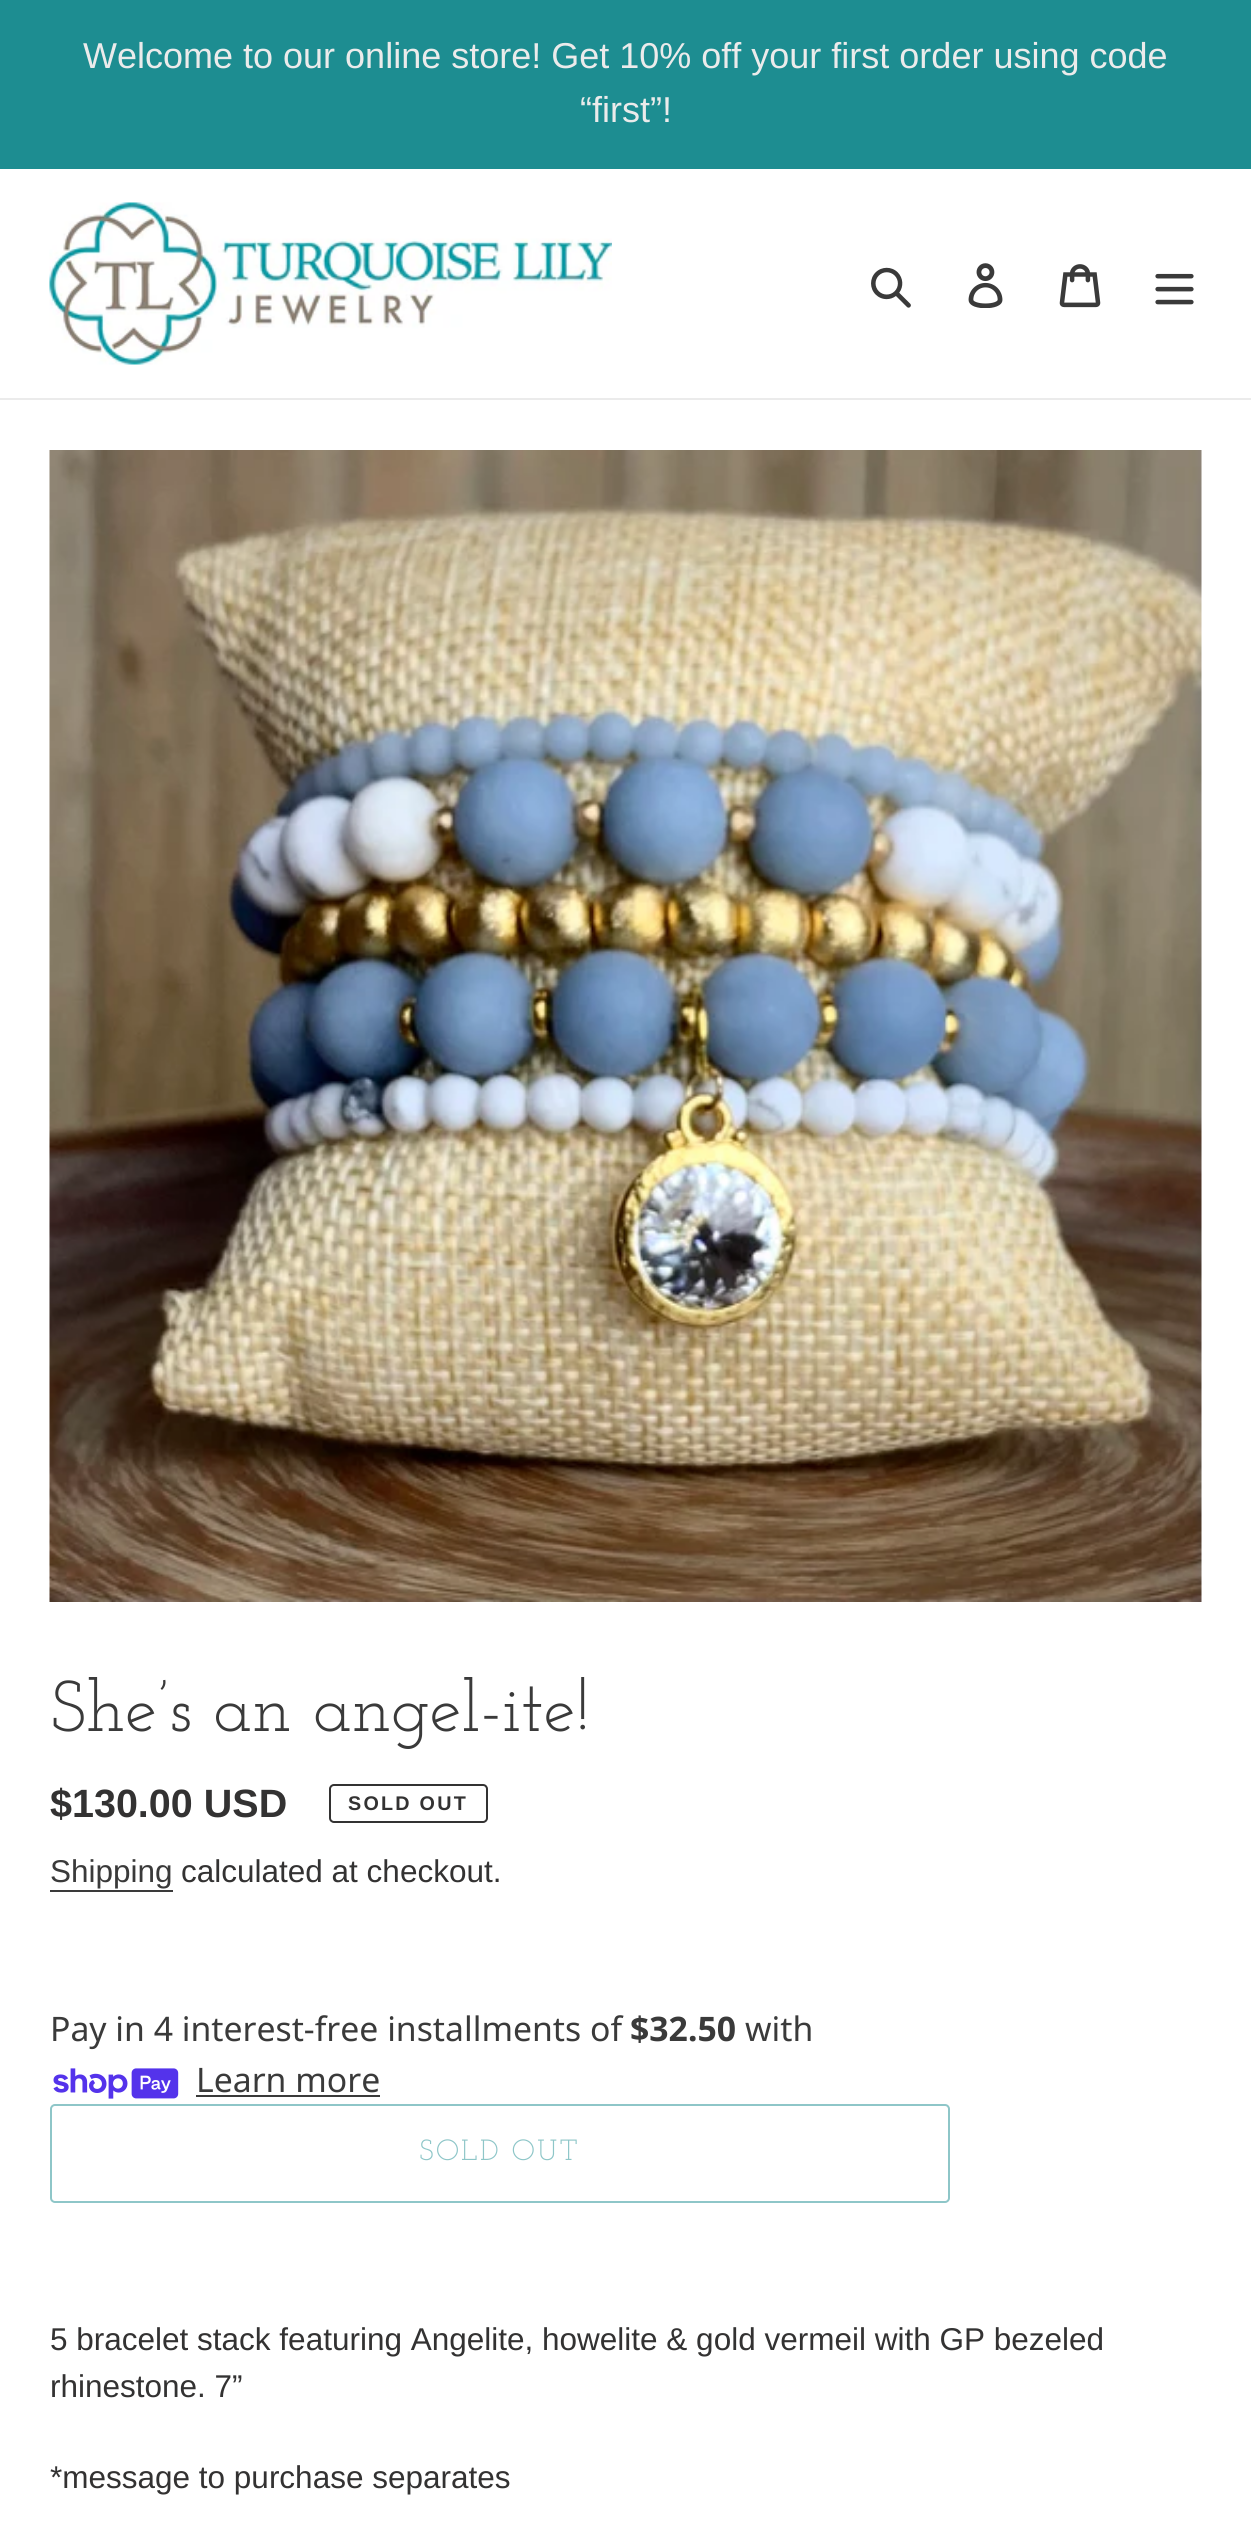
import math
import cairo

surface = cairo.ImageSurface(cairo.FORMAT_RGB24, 1251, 2548)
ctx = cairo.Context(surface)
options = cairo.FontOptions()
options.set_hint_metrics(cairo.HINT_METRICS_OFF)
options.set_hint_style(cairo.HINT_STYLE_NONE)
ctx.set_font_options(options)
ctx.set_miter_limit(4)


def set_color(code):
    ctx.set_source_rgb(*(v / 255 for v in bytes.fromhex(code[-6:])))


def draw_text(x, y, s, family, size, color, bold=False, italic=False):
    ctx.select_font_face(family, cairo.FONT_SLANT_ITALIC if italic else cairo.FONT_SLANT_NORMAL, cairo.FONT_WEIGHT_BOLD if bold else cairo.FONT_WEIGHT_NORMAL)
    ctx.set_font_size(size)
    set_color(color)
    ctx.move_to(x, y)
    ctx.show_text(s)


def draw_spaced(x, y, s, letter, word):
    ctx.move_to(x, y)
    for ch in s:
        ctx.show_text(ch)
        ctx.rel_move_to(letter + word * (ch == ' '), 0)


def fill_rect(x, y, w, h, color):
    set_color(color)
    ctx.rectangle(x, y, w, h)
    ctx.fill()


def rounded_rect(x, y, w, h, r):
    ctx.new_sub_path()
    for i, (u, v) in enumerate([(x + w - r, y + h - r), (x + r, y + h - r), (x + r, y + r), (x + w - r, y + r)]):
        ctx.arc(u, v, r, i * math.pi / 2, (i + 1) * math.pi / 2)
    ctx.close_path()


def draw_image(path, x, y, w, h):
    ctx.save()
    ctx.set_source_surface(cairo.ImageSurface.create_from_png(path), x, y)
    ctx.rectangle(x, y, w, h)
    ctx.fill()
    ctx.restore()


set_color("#ffffff")
ctx.paint()
fill_rect(0, 0, 1251, 169, "#1d8d91")
draw_text(83, 68, "Welcome to our online store! Get 10% off your first order using code", "Liberation Sans", 36, "#ebebeb")
draw_text(580, 122, "“first”!", "Liberation Sans", 36, "#ebebeb")
fill_rect(0, 398, 1251, 2, "#ebebeb")
draw_image("assets/img1.png", 49, 202, 563, 163)
draw_image("assets/img2.png", 871, 267, 40, 41)
draw_image("assets/img3.png", 968, 263, 35, 45)
draw_image("assets/img4.png", 1059, 264, 42, 44)
draw_image("assets/img5.png", 1155, 273, 39, 32)
draw_image("assets/img6.png", 49, 450, 1153, 1152)
draw_text(50, 1731, "She’s an angel-ite!", "Josefin Slab", 72, "#3a3a3a")
draw_text(50, 1817, "$130.00 USD", "Liberation Sans", 39.5, "#333232", bold=True)
rounded_rect(330, 1785, 157, 37, 4)
ctx.stroke()
ctx.set_font_size(19.75)
draw_spaced(348, 1810, "SOLD OUT", 2.25, 0)
draw_text(50, 1882, "Shipping", "Liberation Sans", 31.5, "#3a3a3a")
fill_rect(50, 1890, 123, 2, "#3a3a3a")
draw_text(181, 1882, "calculated at checkout.", "Liberation Sans", 31.5, "#333232")
draw_text(50, 2041, "Pay in 4 interest-free installments of", "Noto Sans", 33.75, "#3a3a3a")
draw_text(630, 2041, "$32.50", "Noto Sans", 33.75, "#3a3a3a", bold=True)
draw_text(745, 2041, "with", "Noto Sans", 33.75, "#3a3a3a")
draw_image("assets/img7.png", 53, 2068, 126, 31)
draw_text(196, 2092, "Learn more", "Noto Sans", 33.75, "#3a3a3a")
fill_rect(196, 2095, 184, 2, "#3a3a3a")
rounded_rect(51, 2105, 898, 97, 4)
set_color("#8ec6c8")
ctx.stroke()
ctx.select_font_face("Josefin Slab")
ctx.set_font_size(29.25)
draw_spaced(419, 2160, "SOLD OUT", 2.25, 0)
draw_text(50, 2350, "5 bracelet stack featuring Angelite, howelite & gold vermeil with GP bezeled", "Liberation Sans", 31.5, "#333232")
draw_text(50, 2397, "rhinestone. 7”", "Liberation Sans", 31.5, "#333232")
draw_text(50, 2488, "*message to purchase separates", "Liberation Sans", 31.5, "#333232")
surface.write_to_png("output.png")
